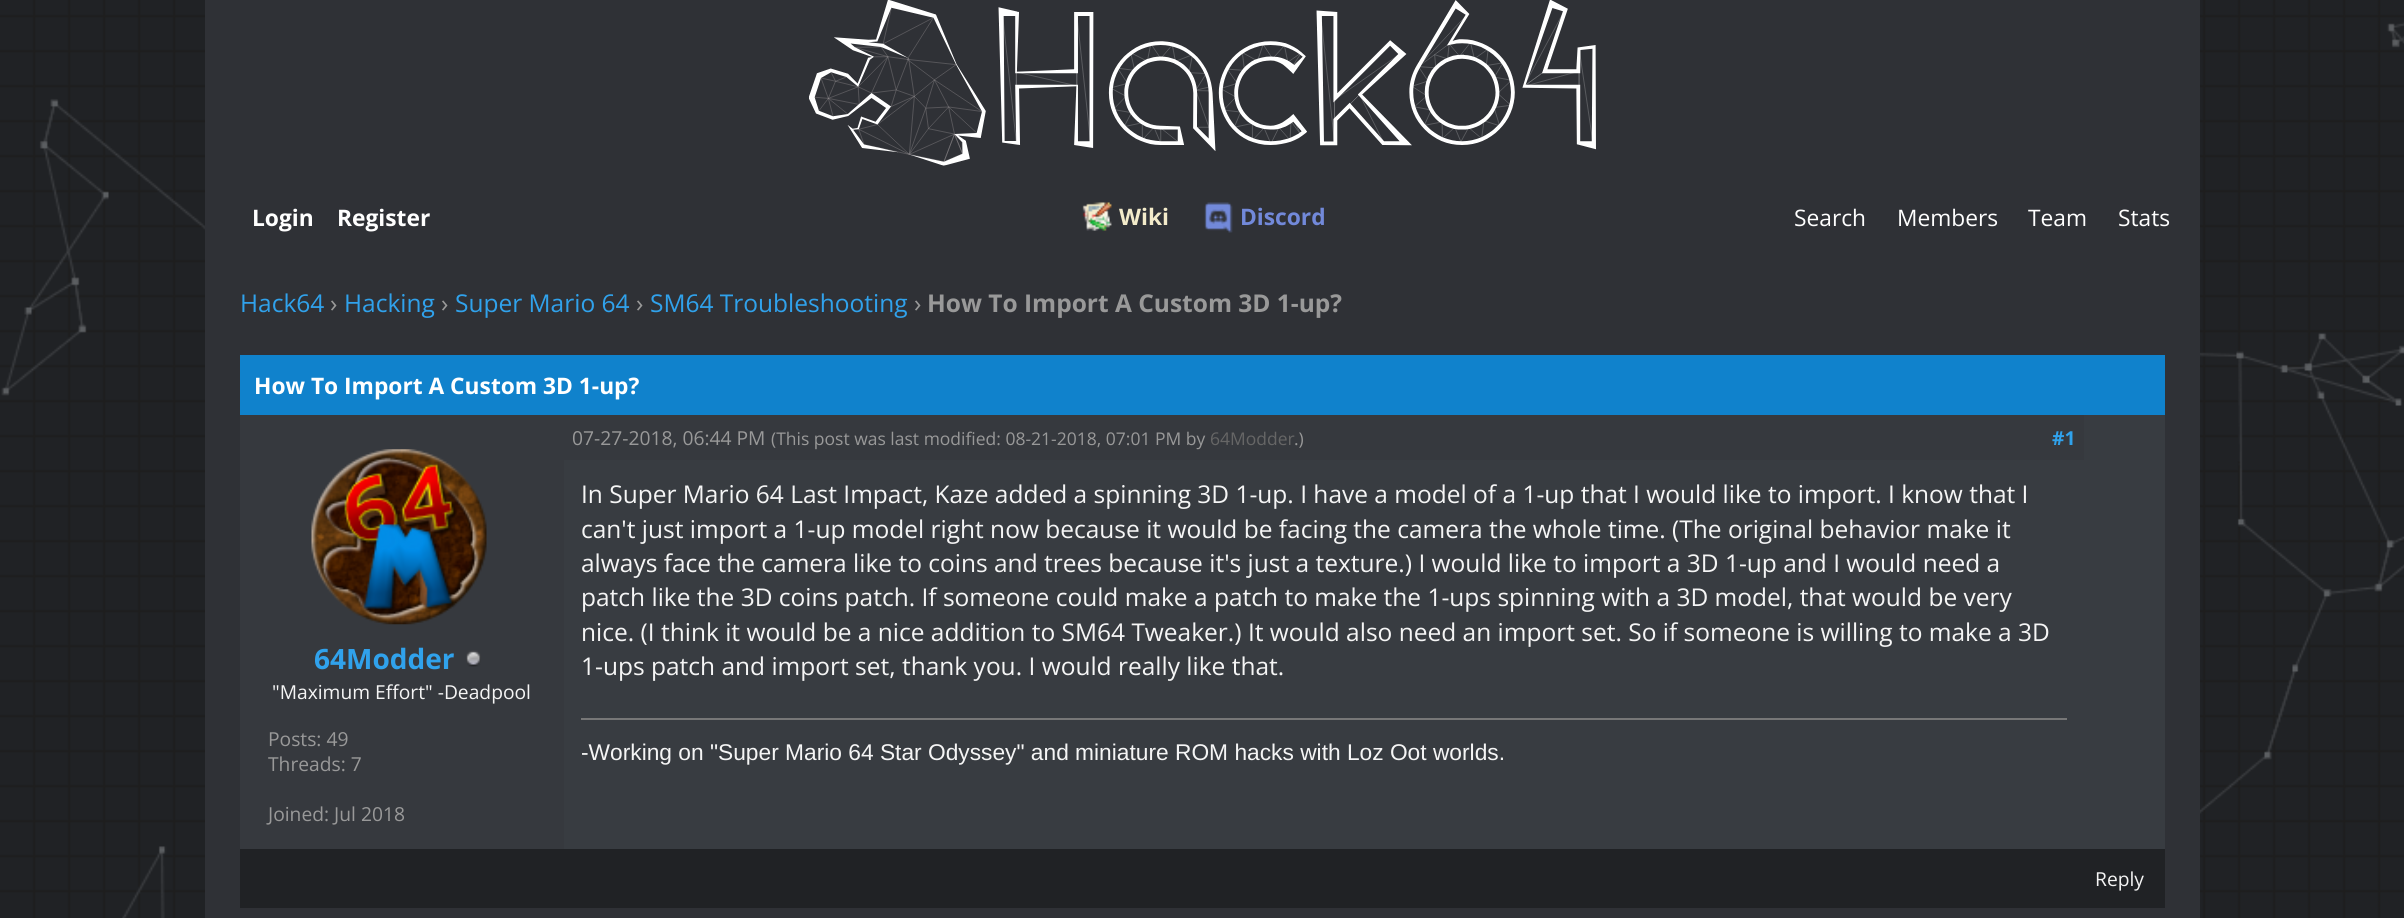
import math
import cairo

surface = cairo.ImageSurface(cairo.FORMAT_RGB24, 2404, 918)
ctx = cairo.Context(surface)
options = cairo.FontOptions()
options.set_hint_metrics(cairo.HINT_METRICS_OFF)
options.set_hint_style(cairo.HINT_STYLE_NONE)
ctx.set_font_options(options)
ctx.set_miter_limit(4)


def set_color(code):
    ctx.set_source_rgb(*(v / 255 for v in bytes.fromhex(code[-6:])))


def draw_text(x, y, s, family, size, color, bold=False, italic=False):
    ctx.select_font_face(family, cairo.FONT_SLANT_ITALIC if italic else cairo.FONT_SLANT_NORMAL, cairo.FONT_WEIGHT_BOLD if bold else cairo.FONT_WEIGHT_NORMAL)
    ctx.set_font_size(size)
    set_color(color)
    ctx.move_to(x, y)
    ctx.show_text(s)


def fill_rect(x, y, w, h, color):
    set_color(color)
    ctx.rectangle(x, y, w, h)
    ctx.fill()


def draw_image(path, x, y, w, h):
    ctx.save()
    ctx.set_source_surface(cairo.ImageSurface.create_from_png(path), x, y)
    ctx.rectangle(x, y, w, h)
    ctx.fill()
    ctx.restore()


set_color("#ffffff")
ctx.paint()
draw_image("assets/img1.png", 0, 0, 2404, 918)
fill_rect(205, 0, 1995, 918, "#2f3136")
draw_image("assets/img2.png", 809, 0, 787, 166)
draw_image("assets/img3.png", 1082, 202, 30, 29)
draw_text(1119, 225, "Wiki", "Open Sans", 22.75, "#f3ebca", bold=True)
draw_image("assets/img4.png", 1204, 202, 29, 31)
draw_text(1240, 225, "Discord", "Open Sans", 22.75, "#7289da", bold=True)
draw_text(252, 226, "Login", "Open Sans", 22.75, "#ffffff", bold=True)
draw_text(337, 226, "Register", "Open Sans", 22.75, "#ffffff", bold=True)
draw_text(1794, 226, "Search", "Open Sans", 22.75, "#ffffff")
draw_text(1897, 226, "Members", "Open Sans", 22.75, "#ffffff")
draw_text(2028, 226, "Team", "Open Sans", 22.75, "#ffffff")
draw_text(2118, 226, "Stats", "Open Sans", 22.75, "#ffffff")
draw_text(240, 312, "Hack64", "Open Sans", 24.5, "#30a2ec")
draw_text(330, 312, "›", "Open Sans", 24.5, "#999999")
draw_text(344, 312, "Hacking", "Open Sans", 24.5, "#30a2ec")
draw_text(441, 312, "›", "Open Sans", 24.5, "#999999")
draw_text(455, 312, "Super Mario 64", "Open Sans", 24.5, "#30a2ec")
draw_text(636, 312, "›", "Open Sans", 24.5, "#999999")
draw_text(650, 312, "SM64 Troubleshooting", "Open Sans", 24.5, "#30a2ec")
draw_text(914, 312, "›", "Open Sans", 24.5, "#999999")
draw_text(927, 312, "How To Import A Custom 3D 1-up?", "Open Sans", 24.5, "#999999", bold=True)
fill_rect(240, 355, 1925, 60, "#1082cc")
draw_text(254, 394, "How To Import A Custom 3D 1-up?", "Open Sans", 22.75, "#ffffff", bold=True)
fill_rect(564, 415, 1601, 434, "#383c41")
fill_rect(240, 415, 324, 434, "#36393e")
draw_image("assets/img5.png", 311, 449, 176, 176)
draw_text(314, 669, "64Modder", "Open Sans", 28, "#30a2ec", bold=True)
draw_image("assets/img6.png", 466, 650, 15, 17)
draw_text(272, 699, "\"Maximum Effort\" -Deadpool", "Open Sans", 19.25, "#f5f5f5")
draw_text(268, 746, "Posts: 49", "Open Sans", 19.25, "#999999")
draw_text(268, 771, "Threads: 7", "Open Sans", 19.25, "#999999")
draw_text(268, 821, "Joined: Jul 2018", "Open Sans", 19.25, "#999999")
fill_rect(564, 415, 1520, 45, "#36393e")
draw_text(572, 445, "07-27-2018, 06:44 PM", "Open Sans", 19.25, "#999999")
draw_text(771, 445, "(This post was last modified: 08-21-2018, 07:01 PM by", "Open Sans", 17.5, "#999999")
draw_text(1210, 445, "64Modder", "Open Sans", 17.5, "#666666")
draw_text(1294, 445, ".)", "Open Sans", 17.5, "#999999")
draw_text(2052, 445, "#1", "Open Sans", 19.25, "#30a2ec", bold=True)
draw_text(581, 503, "In Super Mario 64 Last Impact, Kaze added a spinning 3D 1-up. I have a model of a 1-up that I would like to import. I know that I", "Open Sans", 24.5, "#f5f5f5")
draw_text(581, 538, "can't just import a 1-up model right now because it would be facing the camera the whole time. (The original behavior make it", "Open Sans", 24.5, "#f5f5f5")
draw_text(581, 572, "always face the camera like to coins and trees because it's just a texture.) I would like to import a 3D 1-up and I would need a", "Open Sans", 24.5, "#f5f5f5")
draw_text(581, 606, "patch like the 3D coins patch. If someone could make a patch to make the 1-ups spinning with a 3D model, that would be very", "Open Sans", 24.5, "#f5f5f5")
draw_text(581, 641, "nice. (I think it would be a nice addition to SM64 Tweaker.) It would also need an import set. So if someone is willing to make a 3D", "Open Sans", 24.5, "#f5f5f5")
draw_text(581, 675, "1-ups patch and import set, thank you. I would really like that.", "Open Sans", 24.5, "#f5f5f5")
fill_rect(581, 718, 1486, 2, "#777777")
draw_text(581, 760, "-Working on \"Super Mario 64 Star Odyssey\" and miniature ROM hacks with Loz Oot worlds.", "Liberation Sans", 22.75, "#f5f5f5")
fill_rect(240, 849, 1925, 59, "#202225")
draw_text(2095, 886, "Reply", "Open Sans", 19.25, "#f5f5f5")
surface.write_to_png("output.png")
